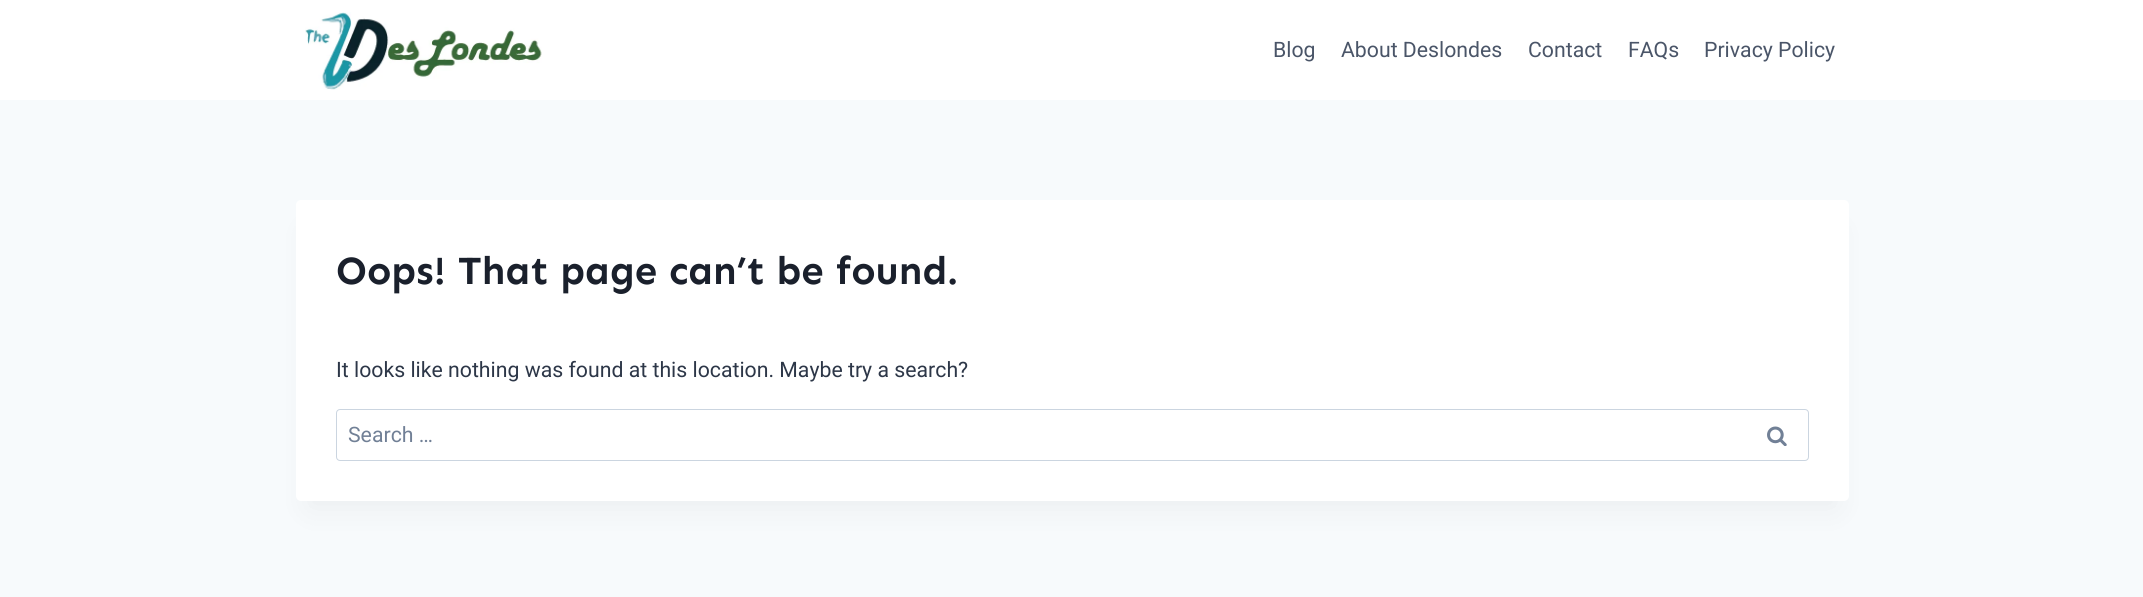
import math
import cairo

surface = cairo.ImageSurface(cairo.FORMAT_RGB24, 2143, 597)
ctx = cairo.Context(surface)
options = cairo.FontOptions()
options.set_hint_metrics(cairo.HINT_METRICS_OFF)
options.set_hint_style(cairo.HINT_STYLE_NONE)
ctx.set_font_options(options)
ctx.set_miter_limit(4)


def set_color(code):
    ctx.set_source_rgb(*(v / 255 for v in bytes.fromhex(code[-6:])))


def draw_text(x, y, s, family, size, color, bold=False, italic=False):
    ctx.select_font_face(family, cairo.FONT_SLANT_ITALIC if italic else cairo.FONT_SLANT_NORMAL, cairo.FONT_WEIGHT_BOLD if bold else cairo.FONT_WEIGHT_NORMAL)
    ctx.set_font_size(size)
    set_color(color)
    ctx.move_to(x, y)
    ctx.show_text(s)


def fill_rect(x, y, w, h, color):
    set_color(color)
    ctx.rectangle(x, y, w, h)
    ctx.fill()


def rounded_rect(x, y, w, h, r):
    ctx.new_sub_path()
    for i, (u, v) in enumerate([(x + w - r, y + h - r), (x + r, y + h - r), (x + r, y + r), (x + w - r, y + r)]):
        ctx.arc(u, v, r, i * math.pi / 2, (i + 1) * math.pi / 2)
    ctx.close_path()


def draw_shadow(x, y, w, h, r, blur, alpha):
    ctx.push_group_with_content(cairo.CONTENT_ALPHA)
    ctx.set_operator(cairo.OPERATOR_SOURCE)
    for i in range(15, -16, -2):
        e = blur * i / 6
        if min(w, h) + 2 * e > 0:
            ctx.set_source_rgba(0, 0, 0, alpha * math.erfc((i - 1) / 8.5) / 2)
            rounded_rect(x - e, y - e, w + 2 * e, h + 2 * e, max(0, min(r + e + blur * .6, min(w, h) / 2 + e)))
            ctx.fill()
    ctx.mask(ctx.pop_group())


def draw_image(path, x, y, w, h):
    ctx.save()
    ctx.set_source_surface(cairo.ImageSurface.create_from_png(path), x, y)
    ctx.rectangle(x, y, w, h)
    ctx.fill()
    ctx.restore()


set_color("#f7fafc")
ctx.paint()
fill_rect(0, 0, 2143, 100, "#ffffff")
draw_image("assets/img1.png", 305, 12, 237, 78)
draw_text(1273, 57, "Blog", "Roboto", 21.25, "#4a5568")
draw_text(1341, 57, "About Deslondes", "Roboto", 21.25, "#4a5568")
draw_text(1528, 57, "Contact", "Roboto", 21.25, "#4a5568")
draw_text(1628, 57, "FAQs", "Roboto", 21.25, "#4a5568")
draw_text(1704, 57, "Privacy Policy", "Roboto", 21.25, "#4a5568")
set_color("#000000")
draw_shadow(309, 231, 1527, 277, 0, 15.5, 0.05)
set_color("#ffffff")
rounded_rect(296, 200, 1553, 301, 5)
ctx.fill()
draw_text(336, 284, "Oops! That page can’t be found.", "Sen", 40, "#1a202c", bold=True)
draw_text(336, 377, "It looks like nothing was found at this location. Maybe try a search?", "Roboto", 21.25, "#2d3748")
rounded_rect(336.5, 409.5, 1472, 51, 3.5)
set_color("#cbd5e0")
ctx.set_line_width(1)
ctx.stroke()
draw_text(348, 442, "Search …", "Roboto", 21.25, "#718096")
draw_image("assets/img2.png", 1767, 426, 20, 20)
surface.write_to_png("output.png")
